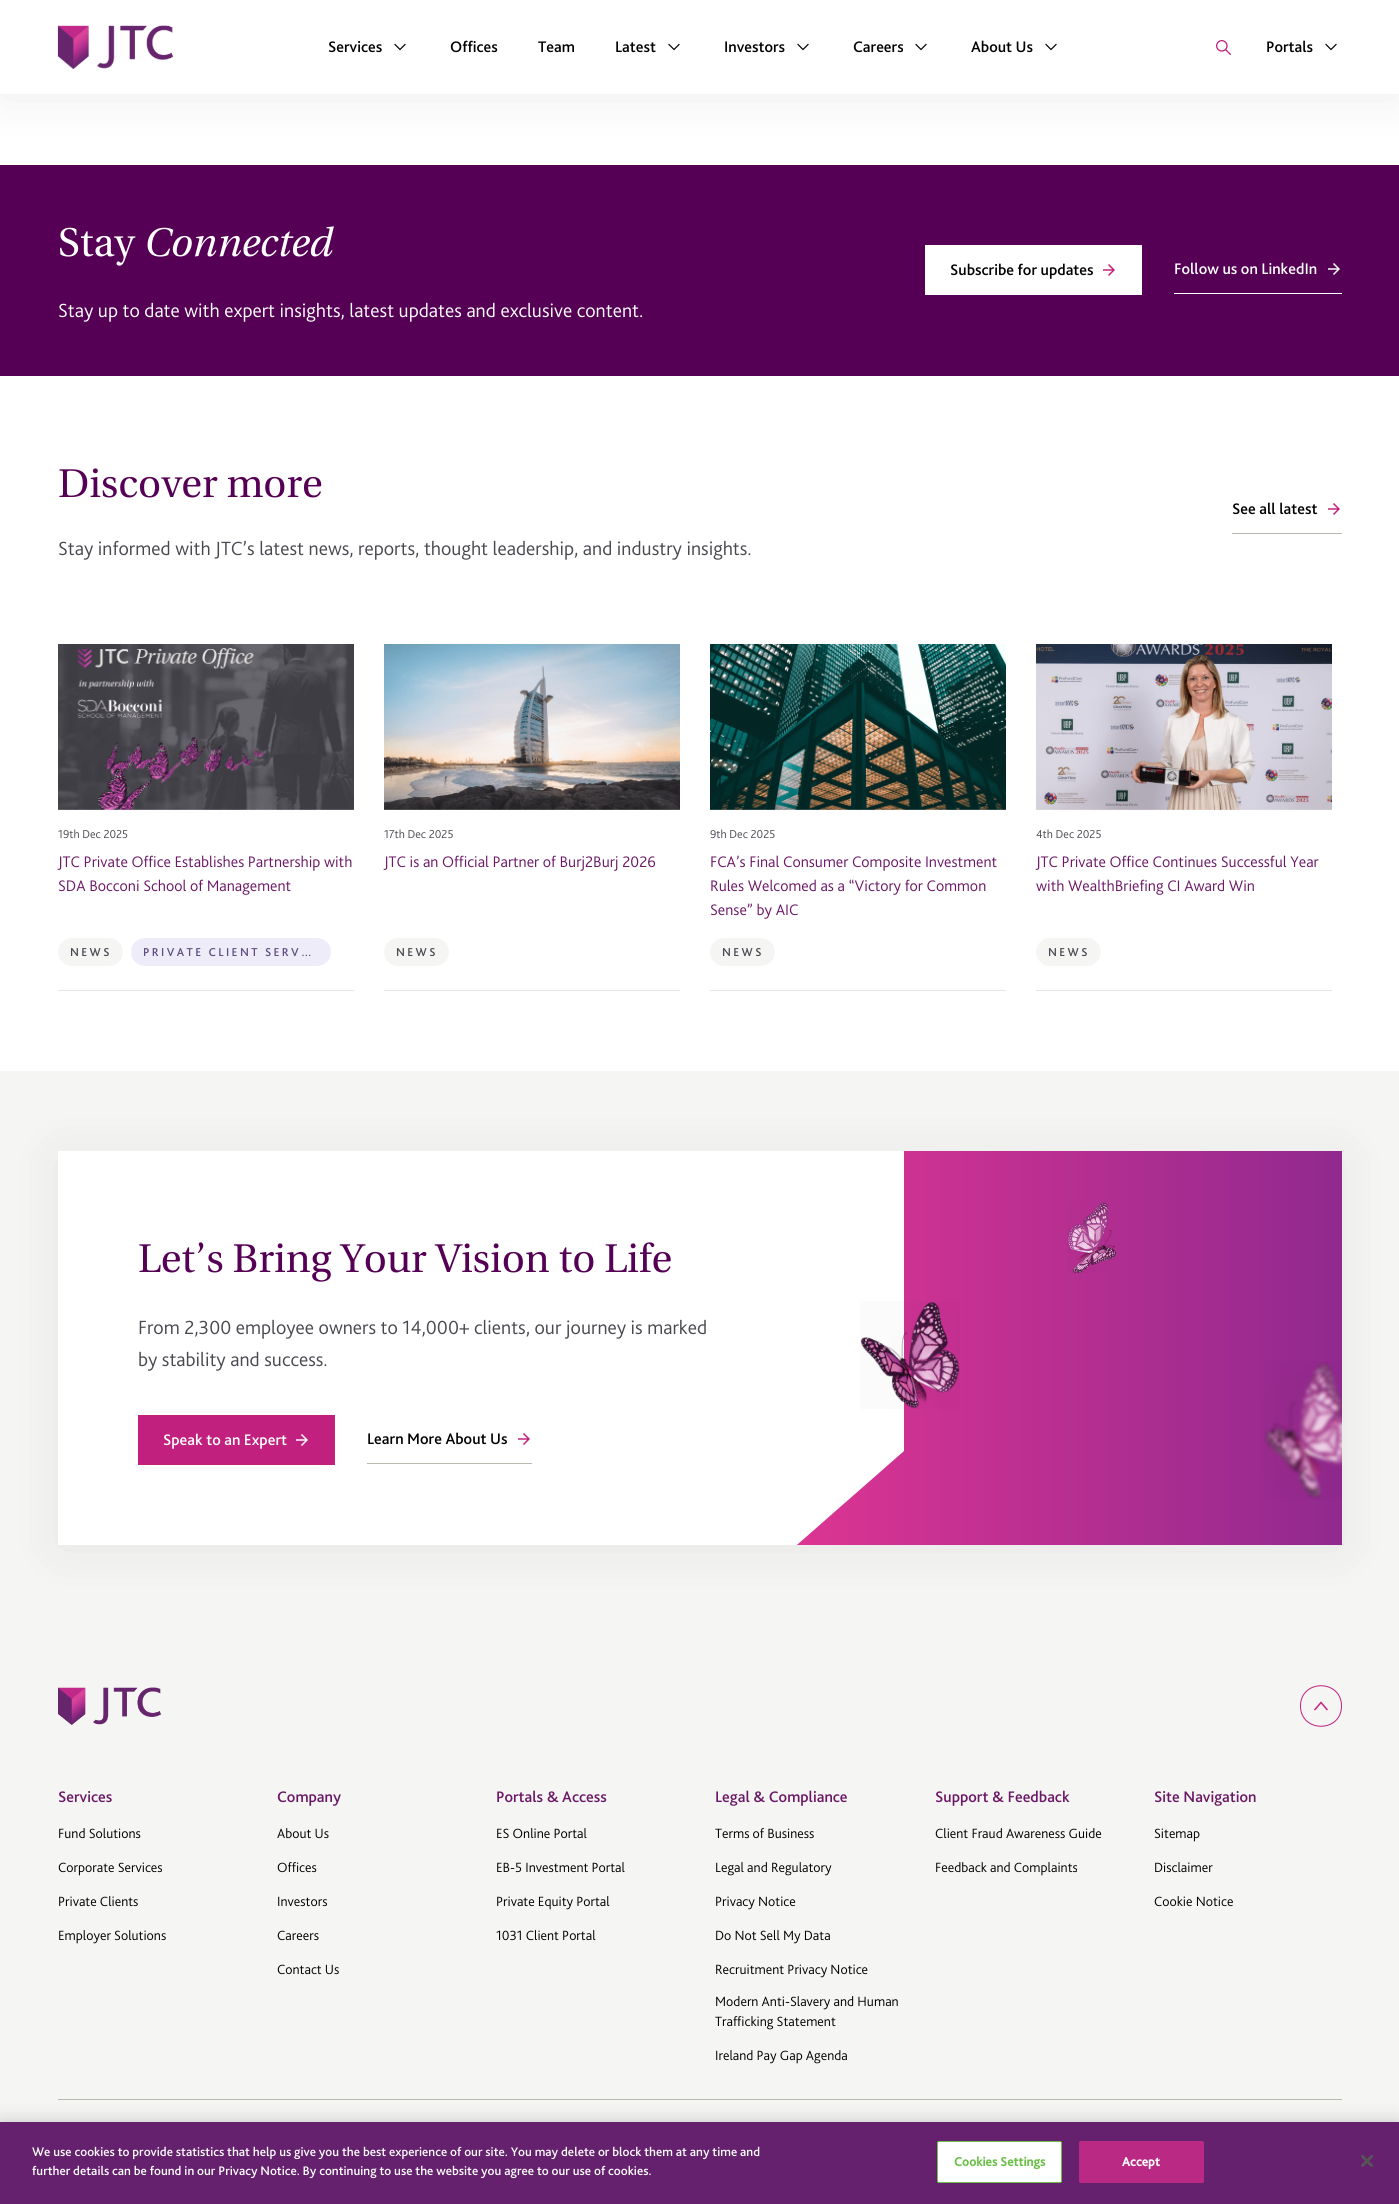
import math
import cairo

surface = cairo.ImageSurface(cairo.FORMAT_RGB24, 1399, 2204)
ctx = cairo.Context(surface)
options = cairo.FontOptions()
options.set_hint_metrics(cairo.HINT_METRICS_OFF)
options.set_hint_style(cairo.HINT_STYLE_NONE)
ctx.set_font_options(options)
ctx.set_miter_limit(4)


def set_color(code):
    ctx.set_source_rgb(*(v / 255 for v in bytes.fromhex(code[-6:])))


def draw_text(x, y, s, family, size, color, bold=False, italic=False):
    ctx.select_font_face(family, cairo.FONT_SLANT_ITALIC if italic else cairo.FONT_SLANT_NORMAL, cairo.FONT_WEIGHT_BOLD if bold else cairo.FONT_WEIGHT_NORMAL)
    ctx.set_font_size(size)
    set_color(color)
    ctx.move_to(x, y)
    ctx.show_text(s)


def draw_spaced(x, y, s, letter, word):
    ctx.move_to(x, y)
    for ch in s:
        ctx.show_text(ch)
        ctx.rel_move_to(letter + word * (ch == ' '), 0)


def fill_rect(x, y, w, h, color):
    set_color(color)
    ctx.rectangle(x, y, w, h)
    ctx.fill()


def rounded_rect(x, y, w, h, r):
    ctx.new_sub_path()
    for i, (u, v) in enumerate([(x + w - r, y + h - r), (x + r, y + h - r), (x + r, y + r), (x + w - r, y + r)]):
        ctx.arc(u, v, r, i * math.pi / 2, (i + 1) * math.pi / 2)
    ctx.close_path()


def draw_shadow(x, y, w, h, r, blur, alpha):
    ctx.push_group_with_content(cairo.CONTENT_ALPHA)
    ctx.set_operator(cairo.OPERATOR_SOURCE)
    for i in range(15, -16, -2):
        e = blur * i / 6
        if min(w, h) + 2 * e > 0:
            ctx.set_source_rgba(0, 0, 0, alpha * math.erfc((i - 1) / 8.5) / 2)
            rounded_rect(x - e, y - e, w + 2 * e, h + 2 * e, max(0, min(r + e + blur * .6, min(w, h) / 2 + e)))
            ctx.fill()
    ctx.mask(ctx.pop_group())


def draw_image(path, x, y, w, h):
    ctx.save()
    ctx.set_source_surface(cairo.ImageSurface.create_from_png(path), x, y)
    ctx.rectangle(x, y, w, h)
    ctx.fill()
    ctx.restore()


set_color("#ffffff")
ctx.paint()
fill_rect(0, 165, 1399, 211, "#550055")
set_color("#8c8c8c")
draw_shadow(0, 4, 1399, 94, 0, 25, 0.15)
fill_rect(0, 0, 1399, 94, "#ffffff")
draw_image("assets/img1.png", 57, 25, 116, 44)
draw_text(328, 52, "Services", "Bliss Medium", 16, "#000000")
ctx.new_path()
ctx.move_to(395, 44.5)
ctx.line_to(400, 49.5)
ctx.line_to(405, 44.5)
ctx.set_line_width(1.2)
ctx.set_line_cap(cairo.LINE_CAP_SQUARE)
ctx.stroke()
draw_text(450, 52, "Offices", "Bliss Medium", 16, "#000000")
draw_text(538, 52, "Team", "Bliss Medium", 16, "#000000")
draw_text(615, 52, "Latest", "Bliss Medium", 16, "#000000")
ctx.new_path()
ctx.move_to(669, 44.5)
ctx.line_to(674, 49.5)
ctx.line_to(679, 44.5)
ctx.stroke()
draw_text(724, 52, "Investors", "Bliss Medium", 16, "#000000")
ctx.new_path()
ctx.move_to(798, 44.5)
ctx.line_to(803, 49.5)
ctx.line_to(808, 44.5)
ctx.stroke()
draw_text(853, 52, "Careers", "Bliss Medium", 16, "#000000")
ctx.new_path()
ctx.move_to(916, 44.5)
ctx.line_to(921, 49.5)
ctx.line_to(926, 44.5)
ctx.stroke()
draw_text(971, 52, "About Us", "Bliss Medium", 16, "#000000")
ctx.new_path()
ctx.move_to(1046, 44.5)
ctx.line_to(1051, 49.5)
ctx.line_to(1056, 44.5)
ctx.stroke()
draw_image("assets/img2.png", 1216, 40, 15, 15)
draw_text(1266, 52, "Portals", "Bliss Medium", 16, "#000000")
ctx.new_path()
ctx.move_to(1326, 44.5)
ctx.line_to(1331, 49.5)
ctx.line_to(1336, 44.5)
ctx.stroke()
draw_text(58, 256, "Stay", "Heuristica", 40, "#ffffff")
draw_text(143, 256, "Connected", "Heuristica", 40, "#ffffff", italic=True)
draw_text(58, 317, "Stay up to date with expert insights, latest updates and exclusive content.", "Bliss Light", 20, "#ffffff")
fill_rect(925, 245, 217, 50, "#ffffff")
draw_text(950, 275, "Subscribe for updates", "Bliss Medium", 16, "#000000")
draw_image("assets/img3.png", 1103, 264, 12, 12)
fill_rect(1174, 293, 168, 1, "#ffffff")
draw_text(1174, 274, "Follow us on LinkedIn", "Bliss Medium", 16, "#ffffff")
draw_image("assets/img4.png", 1328, 263, 12, 12)
draw_text(58, 497, "Discover more", "Heuristica", 40, "#550055")
draw_text(58, 555, "Stay informed with JTC’s latest news, reports, thought leadership, and industry insights.", "Bliss Light", 20, "#48484f")
fill_rect(1232, 533, 110, 1, "#b9b9b1")
draw_text(1232, 514, "See all latest", "Bliss Medium", 16, "#000000")
draw_image("assets/img3.png", 1328, 503, 12, 12)
fill_rect(58, 990, 296, 1, "#e7e8e3")
draw_image("assets/img5.png", 58, 644, 296, 166)
draw_text(58, 838, "19th Dec 2025", "Bliss Light", 12, "#48484f")
draw_text(58, 867, "JTC Private Office Establishes Partnership with", "Bliss Light", 16, "#6b1766")
draw_text(58, 891, "SDA Bocconi School of Management", "Bliss Light", 16, "#6b1766")
set_color("#f5f6f4")
rounded_rect(58, 938, 65, 28, 14)
ctx.fill()
ctx.select_font_face("Bliss Medium")
ctx.set_font_size(12)
set_color("#48484f")
draw_spaced(70, 956, "NEWS", 2.4, 0)
set_color("#edecf8")
rounded_rect(131, 938, 200, 28, 14)
ctx.fill()
set_color("#5d4d80")
draw_spaced(143, 956, "PRIVATE CLIENT SERV…", 2.4, 0)
fill_rect(384, 990, 296, 1, "#e7e8e3")
draw_image("assets/img6.png", 384, 644, 296, 166)
draw_text(384, 838, "17th Dec 2025", "Bliss Light", 12, "#48484f")
draw_text(384, 867, "JTC is an Official Partner of Burj2Burj 2026", "Bliss Light", 16, "#6b1766")
set_color("#f5f6f4")
rounded_rect(384, 938, 65, 28, 14)
ctx.fill()
ctx.select_font_face("Bliss Medium")
ctx.set_font_size(12)
set_color("#48484f")
draw_spaced(396, 956, "NEWS", 2.4, 0)
fill_rect(710, 990, 296, 1, "#e7e8e3")
draw_image("assets/img7.png", 710, 644, 296, 166)
draw_text(710, 838, "9th Dec 2025", "Bliss Light", 12, "#48484f")
draw_text(710, 867, "FCA’s Final Consumer Composite Investment", "Bliss Light", 16, "#6b1766")
draw_text(710, 891, "Rules Welcomed as a “Victory for Common", "Bliss Light", 16, "#6b1766")
draw_text(710, 915, "Sense” by AIC", "Bliss Light", 16, "#6b1766")
set_color("#f5f6f4")
rounded_rect(710, 938, 65, 28, 14)
ctx.fill()
ctx.select_font_face("Bliss Medium")
ctx.set_font_size(12)
set_color("#48484f")
draw_spaced(722, 956, "NEWS", 2.4, 0)
fill_rect(1036, 990, 296, 1, "#e7e8e3")
draw_image("assets/img8.png", 1036, 644, 296, 166)
draw_text(1036, 838, "4th Dec 2025", "Bliss Light", 12, "#48484f")
draw_text(1036, 867, "JTC Private Office Continues Successful Year", "Bliss Light", 16, "#6b1766")
draw_text(1036, 891, "with WealthBriefing CI Award Win", "Bliss Light", 16, "#6b1766")
set_color("#f5f6f4")
rounded_rect(1036, 938, 65, 28, 14)
ctx.fill()
ctx.select_font_face("Bliss Medium")
ctx.set_font_size(12)
set_color("#48484f")
draw_spaced(1048, 956, "NEWS", 2.4, 0)
fill_rect(0, 1071, 1399, 1051, "#f5f6f4")
set_color("#8c8c8c")
draw_shadow(58, 1155, 1284, 394, 0, 25, 0.15)
gradient = cairo.LinearGradient(58, 1348, 1342, 1348)
gradient.add_color_stop_rgba(0.55, 0.882, 0.208, 0.576, 1)
gradient.add_color_stop_rgba(1, 0.569, 0.161, 0.561, 1)
ctx.set_source(gradient)
ctx.rectangle(796, 1151, 546, 394)
ctx.fill()
fill_rect(58, 1151, 732, 394, "#ffffff")
draw_text(138, 1272, "Let’s Bring Your Vision to Life", "Heuristica", 40, "#550055")
draw_text(138, 1334, "From 2,300 employee owners to 14,000+ clients, our journey is marked", "Bliss Light", 20, "#48484f")
draw_text(138, 1366, "by stability and success.", "Bliss Light", 20, "#48484f")
ctx.save()
ctx.rectangle(58, 1151, 1284, 394)
ctx.clip()
set_color("#ffffff")
ctx.new_path()
ctx.move_to(790, 1551)
ctx.line_to(790, 1147)
ctx.line_to(904, 1147)
ctx.line_to(904, 1451)
ctx.close_path()
ctx.fill()
ctx.restore()
draw_image("assets/img9.png", 860, 1301, 100, 108)
draw_image("assets/img10.png", 1067, 1202, 49, 71)
draw_image("assets/img11.png", 1263, 1361, 79, 139)
fill_rect(138, 1415, 197, 50, "#c2207e")
draw_text(163, 1445, "Speak to an Expert", "Bliss Medium", 16, "#ffffff")
draw_image("assets/img12.png", 296, 1434, 12, 12)
fill_rect(367, 1463, 165, 1, "#b9b9b1")
draw_text(367, 1444, "Learn More About Us", "Bliss Medium", 16, "#000000")
draw_image("assets/img3.png", 518, 1433, 12, 12)
draw_image("assets/img13.png", 58, 1687, 103, 38)
ctx.new_path()
ctx.move_to(1300.5, 1706)
ctx.curve_to(1300.5, 1679, 1341.5, 1679, 1341.5, 1706)
ctx.curve_to(1341.5, 1733, 1300.5, 1733, 1300.5, 1706)
ctx.close_path()
set_color("#c2207e")
ctx.set_line_width(1)
ctx.set_line_cap(cairo.LINE_CAP_BUTT)
ctx.stroke()
ctx.new_path()
ctx.move_to(1327, 1709.5)
ctx.line_to(1321, 1702.5)
ctx.line_to(1315, 1709.5)
ctx.set_line_width(1.5)
ctx.set_line_cap(cairo.LINE_CAP_SQUARE)
ctx.stroke()
draw_text(58, 1802, "Services", "Bliss Medium", 16, "#6b1766")
draw_text(58, 1838, "Fund Solutions", "Bliss Light", 14, "#000000")
draw_text(58, 1872, "Corporate Services", "Bliss Light", 14, "#000000")
draw_text(58, 1906, "Private Clients", "Bliss Light", 14, "#000000")
draw_text(58, 1940, "Employer Solutions", "Bliss Light", 14, "#000000")
draw_text(277, 1802, "Company", "Bliss Medium", 16, "#6b1766")
draw_text(277, 1838, "About Us", "Bliss Light", 14, "#000000")
draw_text(277, 1872, "Offices", "Bliss Light", 14, "#000000")
draw_text(277, 1906, "Investors", "Bliss Light", 14, "#000000")
draw_text(277, 1940, "Careers", "Bliss Light", 14, "#000000")
draw_text(277, 1974, "Contact Us", "Bliss Light", 14, "#000000")
draw_text(496, 1802, "Portals & Access", "Bliss Medium", 16, "#6b1766")
draw_text(496, 1838, "ES Online Portal", "Bliss Light", 14, "#000000")
draw_text(496, 1872, "EB-5 Investment Portal", "Bliss Light", 14, "#000000")
draw_text(496, 1906, "Private Equity Portal", "Bliss Light", 14, "#000000")
draw_text(496, 1940, "1031 Client Portal", "Bliss Light", 14, "#000000")
draw_text(715, 1802, "Legal & Compliance", "Bliss Medium", 16, "#6b1766")
draw_text(715, 1838, "Terms of Business", "Bliss Light", 14, "#000000")
draw_text(715, 1872, "Legal and Regulatory", "Bliss Light", 14, "#000000")
draw_text(715, 1906, "Privacy Notice", "Bliss Light", 14, "#000000")
draw_text(715, 1940, "Do Not Sell My Data", "Bliss Light", 14, "#000000")
draw_text(715, 1974, "Recruitment Privacy Notice", "Bliss Light", 14, "#000000")
draw_text(715, 2006, "Modern Anti-Slavery and Human", "Bliss Light", 14, "#000000")
draw_text(715, 2026, "Trafficking Statement", "Bliss Light", 14, "#000000")
draw_text(715, 2060, "Ireland Pay Gap Agenda", "Bliss Light", 14, "#000000")
draw_text(935, 1802, "Support & Feedback", "Bliss Medium", 16, "#6b1766")
draw_text(935, 1838, "Client Fraud Awareness Guide", "Bliss Light", 14, "#000000")
draw_text(935, 1872, "Feedback and Complaints", "Bliss Light", 14, "#000000")
draw_text(1154, 1802, "Site Navigation", "Bliss Medium", 16, "#6b1766")
draw_text(1154, 1838, "Sitemap", "Bliss Light", 14, "#000000")
draw_text(1154, 1872, "Disclaimer", "Bliss Light", 14, "#000000")
draw_text(1154, 1906, "Cookie Notice", "Bliss Light", 14, "#000000")
fill_rect(58, 2099, 1284, 1, "#b9b9b1")
set_color("#000000")
draw_shadow(0, 2122, 1399, 82, 0, 9, 0.2)
fill_rect(0, 2122, 1399, 82, "#65216e")
draw_text(32, 2156, "We use cookies to provide statistics that help us give you the best experience of our site. You may delete or block them at any time and", "Bliss Medium", 13, "#ffffff")
draw_text(32, 2175, "further details can be found in our Privacy Notice. By continuing to use the website you agree to our use of cookies.", "Bliss Medium", 13, "#ffffff")
rounded_rect(937.5, 2141.5, 124, 41, 1.5)
ctx.fill_preserve()
set_color("#6cc04a")
ctx.set_line_width(1)
ctx.set_line_cap(cairo.LINE_CAP_BUTT)
ctx.stroke()
ctx.select_font_face("Bliss", cairo.FONT_SLANT_NORMAL, cairo.FONT_WEIGHT_BOLD)
draw_spaced(954, 2166, "Cookies Settings", 0.1, 0)
set_color("#ba2a84")
rounded_rect(1079.5, 2141.5, 124, 41, 1.5)
ctx.fill_preserve()
ctx.stroke()
set_color("#ffffff")
draw_spaced(1122, 2166, "Accept", 0.1, 0)
draw_image("assets/img14.png", 1361, 2155, 12, 12)
surface.write_to_png("output.png")
